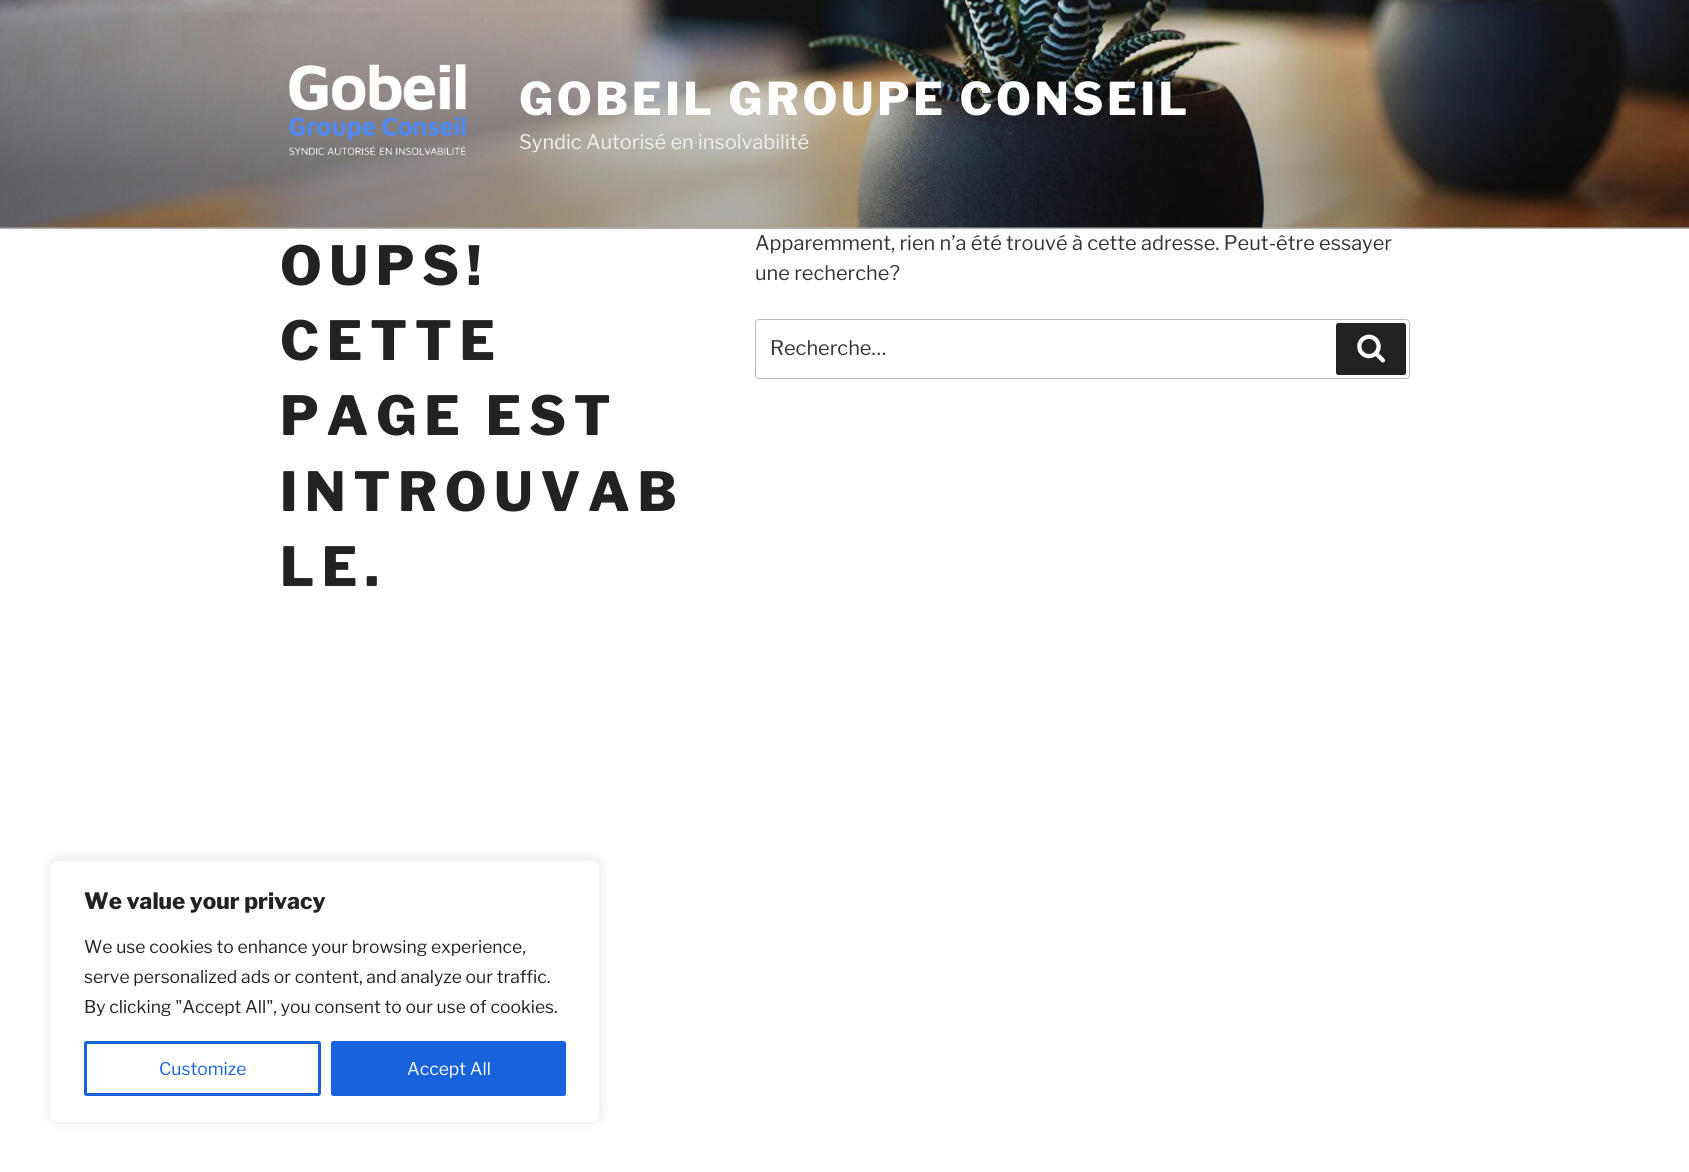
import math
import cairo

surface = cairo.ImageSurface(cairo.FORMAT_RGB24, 1689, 1172)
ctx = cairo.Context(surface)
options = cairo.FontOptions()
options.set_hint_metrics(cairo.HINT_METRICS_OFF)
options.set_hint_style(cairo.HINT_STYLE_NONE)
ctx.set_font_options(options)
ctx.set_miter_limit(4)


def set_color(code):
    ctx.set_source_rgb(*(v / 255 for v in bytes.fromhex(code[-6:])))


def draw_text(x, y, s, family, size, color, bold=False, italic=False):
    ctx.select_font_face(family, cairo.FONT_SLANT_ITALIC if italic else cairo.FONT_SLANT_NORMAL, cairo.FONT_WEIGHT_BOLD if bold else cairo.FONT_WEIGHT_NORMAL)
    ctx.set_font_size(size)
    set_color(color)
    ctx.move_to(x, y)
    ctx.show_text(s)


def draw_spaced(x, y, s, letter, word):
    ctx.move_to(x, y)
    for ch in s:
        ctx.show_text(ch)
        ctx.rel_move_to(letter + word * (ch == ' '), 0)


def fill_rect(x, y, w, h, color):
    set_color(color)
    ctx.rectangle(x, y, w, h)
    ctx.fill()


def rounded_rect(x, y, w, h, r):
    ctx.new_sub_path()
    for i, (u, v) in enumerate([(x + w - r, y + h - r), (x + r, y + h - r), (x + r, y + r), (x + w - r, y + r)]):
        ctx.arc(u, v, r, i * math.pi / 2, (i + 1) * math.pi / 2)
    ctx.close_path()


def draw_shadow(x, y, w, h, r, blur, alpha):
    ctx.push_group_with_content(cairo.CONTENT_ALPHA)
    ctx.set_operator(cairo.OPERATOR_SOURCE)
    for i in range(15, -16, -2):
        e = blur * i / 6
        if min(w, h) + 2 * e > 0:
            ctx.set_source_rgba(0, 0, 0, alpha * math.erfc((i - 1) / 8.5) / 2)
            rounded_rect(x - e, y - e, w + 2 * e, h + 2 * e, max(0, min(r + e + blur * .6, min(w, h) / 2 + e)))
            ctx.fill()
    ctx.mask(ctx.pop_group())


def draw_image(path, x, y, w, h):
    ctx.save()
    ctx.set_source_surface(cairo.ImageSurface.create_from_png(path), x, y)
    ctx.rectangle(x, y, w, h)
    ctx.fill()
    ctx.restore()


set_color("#ffffff")
ctx.paint()
fill_rect(0, 227, 1689, 2, "#fafafa")
draw_image("assets/img1.png", 0, 0, 1689, 228)
gradient = cairo.LinearGradient(845, 0, 845, 229)
gradient.add_color_stop_rgba(0, 0, 0, 0, 0)
gradient.add_color_stop_rgba(0.75, 0, 0, 0, 0.3)
gradient.add_color_stop_rgba(1, 0, 0, 0, 0.3)
ctx.set_source(gradient)
ctx.rectangle(0, 12, 1689, 217)
ctx.fill()
draw_image("assets/img2.png", 289, 64, 177, 92)
ctx.select_font_face("Libre Franklin Thin")
ctx.set_font_size(45)
set_color("#ffffff")
draw_spaced(519, 115, "GOBEIL GROUPE CONSEIL", 3.6, 0)
draw_text(519, 149, "Syndic Autorisé en insolvabilité", "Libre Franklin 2 Thin", 20, "#f0efed")
ctx.select_font_face("Libre Franklin Thin")
ctx.set_font_size(53.75)
set_color("#222222")
draw_spaced(280, 285, "OUPS!", 7.5, 0)
draw_spaced(280, 360, "CETTE", 7.5, 0)
draw_spaced(280, 435, "PAGE EST", 7.5, 0)
draw_spaced(280, 511, "INTROUVAB", 7.5, 0)
draw_spaced(280, 586, "LE.", 7.5, 0)
draw_text(755, 250, "Apparemment, rien n’a été trouvé à cette adresse. Peut-être essayer", "Libre Franklin 2 Thin", 20, "#333333")
draw_text(755, 280, "une recherche?", "Libre Franklin 2 Thin", 20, "#333333")
rounded_rect(755.5, 319.5, 654, 59, 3.5)
set_color("#bbbbbb")
ctx.set_line_width(1)
ctx.stroke()
draw_text(770, 355, "Recherche…", "Libre Franklin 2 Thin", 20, "#333333")
set_color("#222222")
rounded_rect(1336, 323, 70, 52, 2.5)
ctx.fill()
draw_image("assets/img3.png", 1357, 334, 28, 29)
set_color("#acabab")
draw_shadow(50, 859, 550, 262, 8, 6, 0.3)
set_color("#ffffff")
rounded_rect(50.5, 860.5, 549, 262, 7.5)
ctx.fill_preserve()
set_color("#f4f4f4")
ctx.stroke()
draw_text(84, 909, "We value your privacy", "Libre Franklin Thin", 22.5, "#222222")
draw_text(84, 953, "We use cookies to enhance your browsing experience,", "Libre Franklin 2 Thin", 17.5, "#222222")
draw_text(84, 983, "serve personalized ads or content, and analyze our traffic.", "Libre Franklin 2 Thin", 17.5, "#222222")
draw_text(84, 1013, "By clicking \"Accept All\", you consent to our use of cookies.", "Libre Franklin 2 Thin", 17.5, "#222222")
rounded_rect(85.5, 1042.5, 234, 52, 1)
set_color("#1863dc")
ctx.set_line_width(3)
ctx.stroke()
draw_text(159, 1075, "Customize", "Libre Franklin 2 Thin", 17.5, "#1863dc")
rounded_rect(332.5, 1042.5, 232, 52, 1)
ctx.fill_preserve()
ctx.stroke()
draw_text(407, 1075, "Accept All", "Libre Franklin 2 Thin", 17.5, "#ffffff")
surface.write_to_png("output.png")
